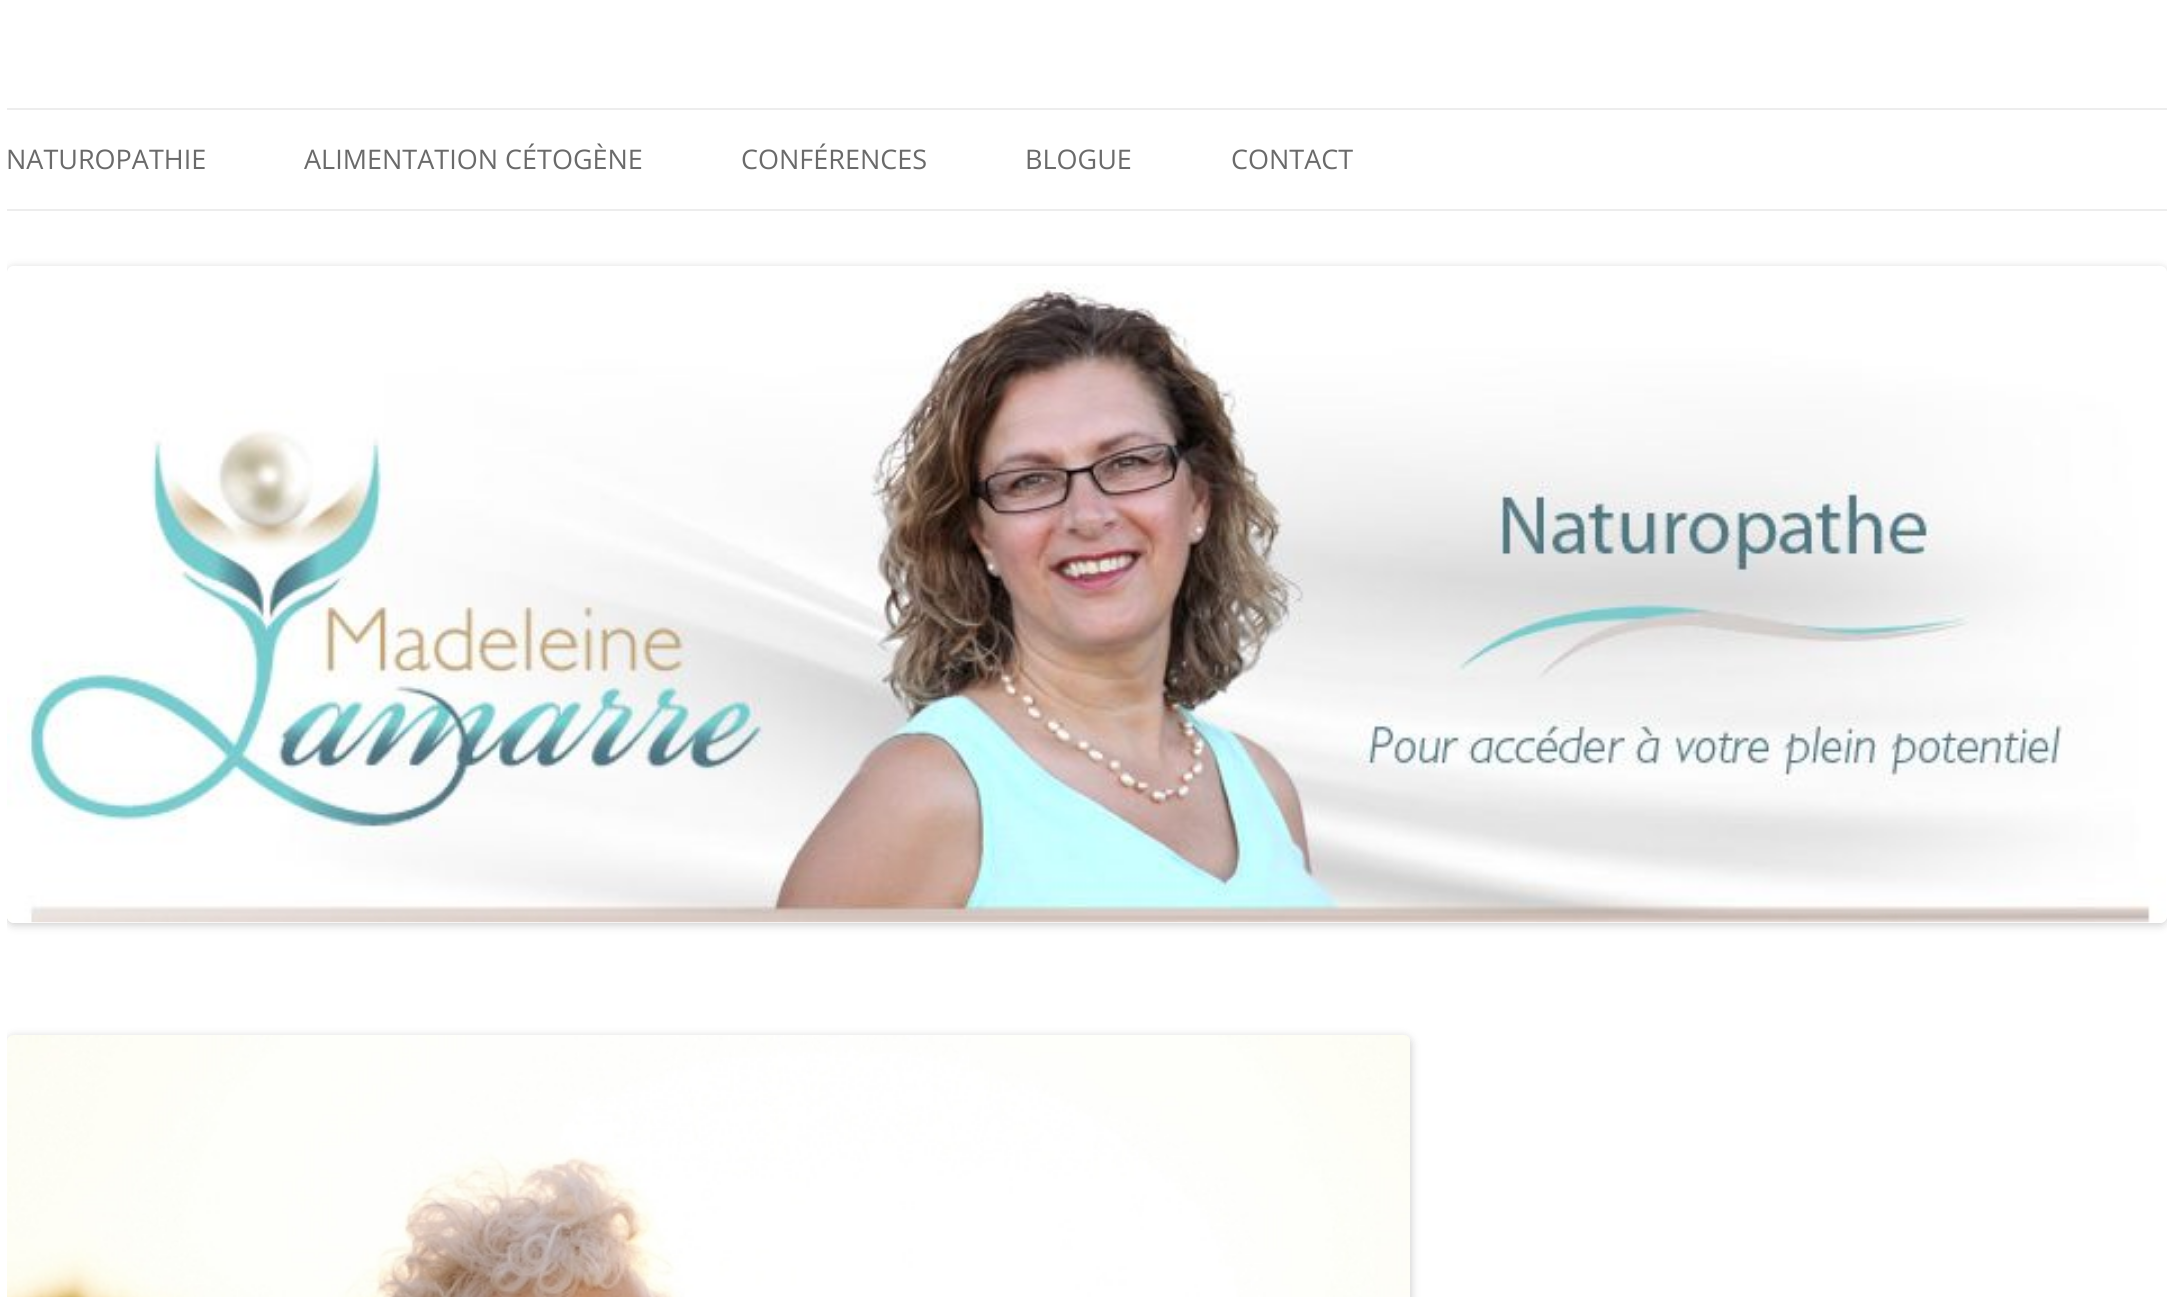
import math
import cairo

surface = cairo.ImageSurface(cairo.FORMAT_RGB24, 2170, 1297)
ctx = cairo.Context(surface)
options = cairo.FontOptions()
options.set_hint_metrics(cairo.HINT_METRICS_OFF)
options.set_hint_style(cairo.HINT_STYLE_NONE)
ctx.set_font_options(options)
ctx.set_miter_limit(4)


def set_color(code):
    ctx.set_source_rgb(*(v / 255 for v in bytes.fromhex(code[-6:])))


def draw_text(x, y, s, family, size, color, bold=False, italic=False):
    ctx.select_font_face(family, cairo.FONT_SLANT_ITALIC if italic else cairo.FONT_SLANT_NORMAL, cairo.FONT_WEIGHT_BOLD if bold else cairo.FONT_WEIGHT_NORMAL)
    ctx.set_font_size(size)
    set_color(color)
    ctx.move_to(x, y)
    ctx.show_text(s)


def fill_rect(x, y, w, h, color):
    set_color(color)
    ctx.rectangle(x, y, w, h)
    ctx.fill()


def rounded_rect(x, y, w, h, r):
    ctx.new_sub_path()
    for i, (u, v) in enumerate([(x + w - r, y + h - r), (x + r, y + h - r), (x + r, y + r), (x + w - r, y + r)]):
        ctx.arc(u, v, r, i * math.pi / 2, (i + 1) * math.pi / 2)
    ctx.close_path()


def draw_shadow(x, y, w, h, r, blur, alpha):
    ctx.push_group_with_content(cairo.CONTENT_ALPHA)
    ctx.set_operator(cairo.OPERATOR_SOURCE)
    for i in range(15, -16, -2):
        e = blur * i / 6
        if min(w, h) + 2 * e > 0:
            ctx.set_source_rgba(0, 0, 0, alpha * math.erfc((i - 1) / 8.5) / 2)
            rounded_rect(x - e, y - e, w + 2 * e, h + 2 * e, max(0, min(r + e + blur * .6, min(w, h) / 2 + e)))
            ctx.fill()
    ctx.mask(ctx.pop_group())


def draw_image(path, x, y, w, h):
    ctx.save()
    ctx.set_source_surface(cairo.ImageSurface.create_from_png(path), x, y)
    ctx.rectangle(x, y, w, h)
    ctx.fill()
    ctx.restore()


set_color("#ffffff")
ctx.paint()
fill_rect(7, 108, 2160, 2, "#ededed")
fill_rect(7, 209, 2160, 2, "#ededed")
draw_text(6, 169, "NATUROPATHIE", "Open Sans", 27, "#6a6a6a")
draw_text(304, 169, "ALIMENTATION CÉTOGÈNE", "Open Sans", 27, "#6a6a6a")
draw_text(741, 169, "CONFÉRENCES", "Open Sans", 27, "#6a6a6a")
draw_text(1025, 169, "BLOGUE", "Open Sans", 27, "#6a6a6a")
draw_text(1231, 169, "CONTACT", "Open Sans", 27, "#6a6a6a")
ctx.save()
ctx.rectangle(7, 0, 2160, 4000)
ctx.clip()
ctx.set_fill_rule(cairo.FILL_RULE_EVEN_ODD)
ctx.new_path()
ctx.move_to(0, 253)
ctx.line_to(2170, 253)
ctx.line_to(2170, 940)
ctx.line_to(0, 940)
ctx.close_path()
ctx.move_to(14, 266)
ctx.line_to(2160, 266)
ctx.curve_to(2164, 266, 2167, 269, 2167, 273)
ctx.line_to(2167, 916)
ctx.curve_to(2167, 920, 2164, 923, 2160, 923)
ctx.line_to(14, 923)
ctx.curve_to(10, 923, 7, 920, 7, 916)
ctx.line_to(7, 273)
ctx.curve_to(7, 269, 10, 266, 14, 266)
ctx.close_path()
ctx.clip()
set_color("#000000")
draw_shadow(7, 268, 2160, 657, 7, 4.5, 0.2)
ctx.restore()
draw_image("assets/img1.png", 7, 283, 2159, 640)
ctx.save()
ctx.rectangle(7, 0, 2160, 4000)
ctx.clip()
set_color("#000000")
draw_shadow(7, 1037, 1404, 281, 7, 4.5, 0.2)
ctx.restore()
draw_image("assets/img2.png", 7, 1035, 1403, 262)
surface.write_to_png("output.png")
